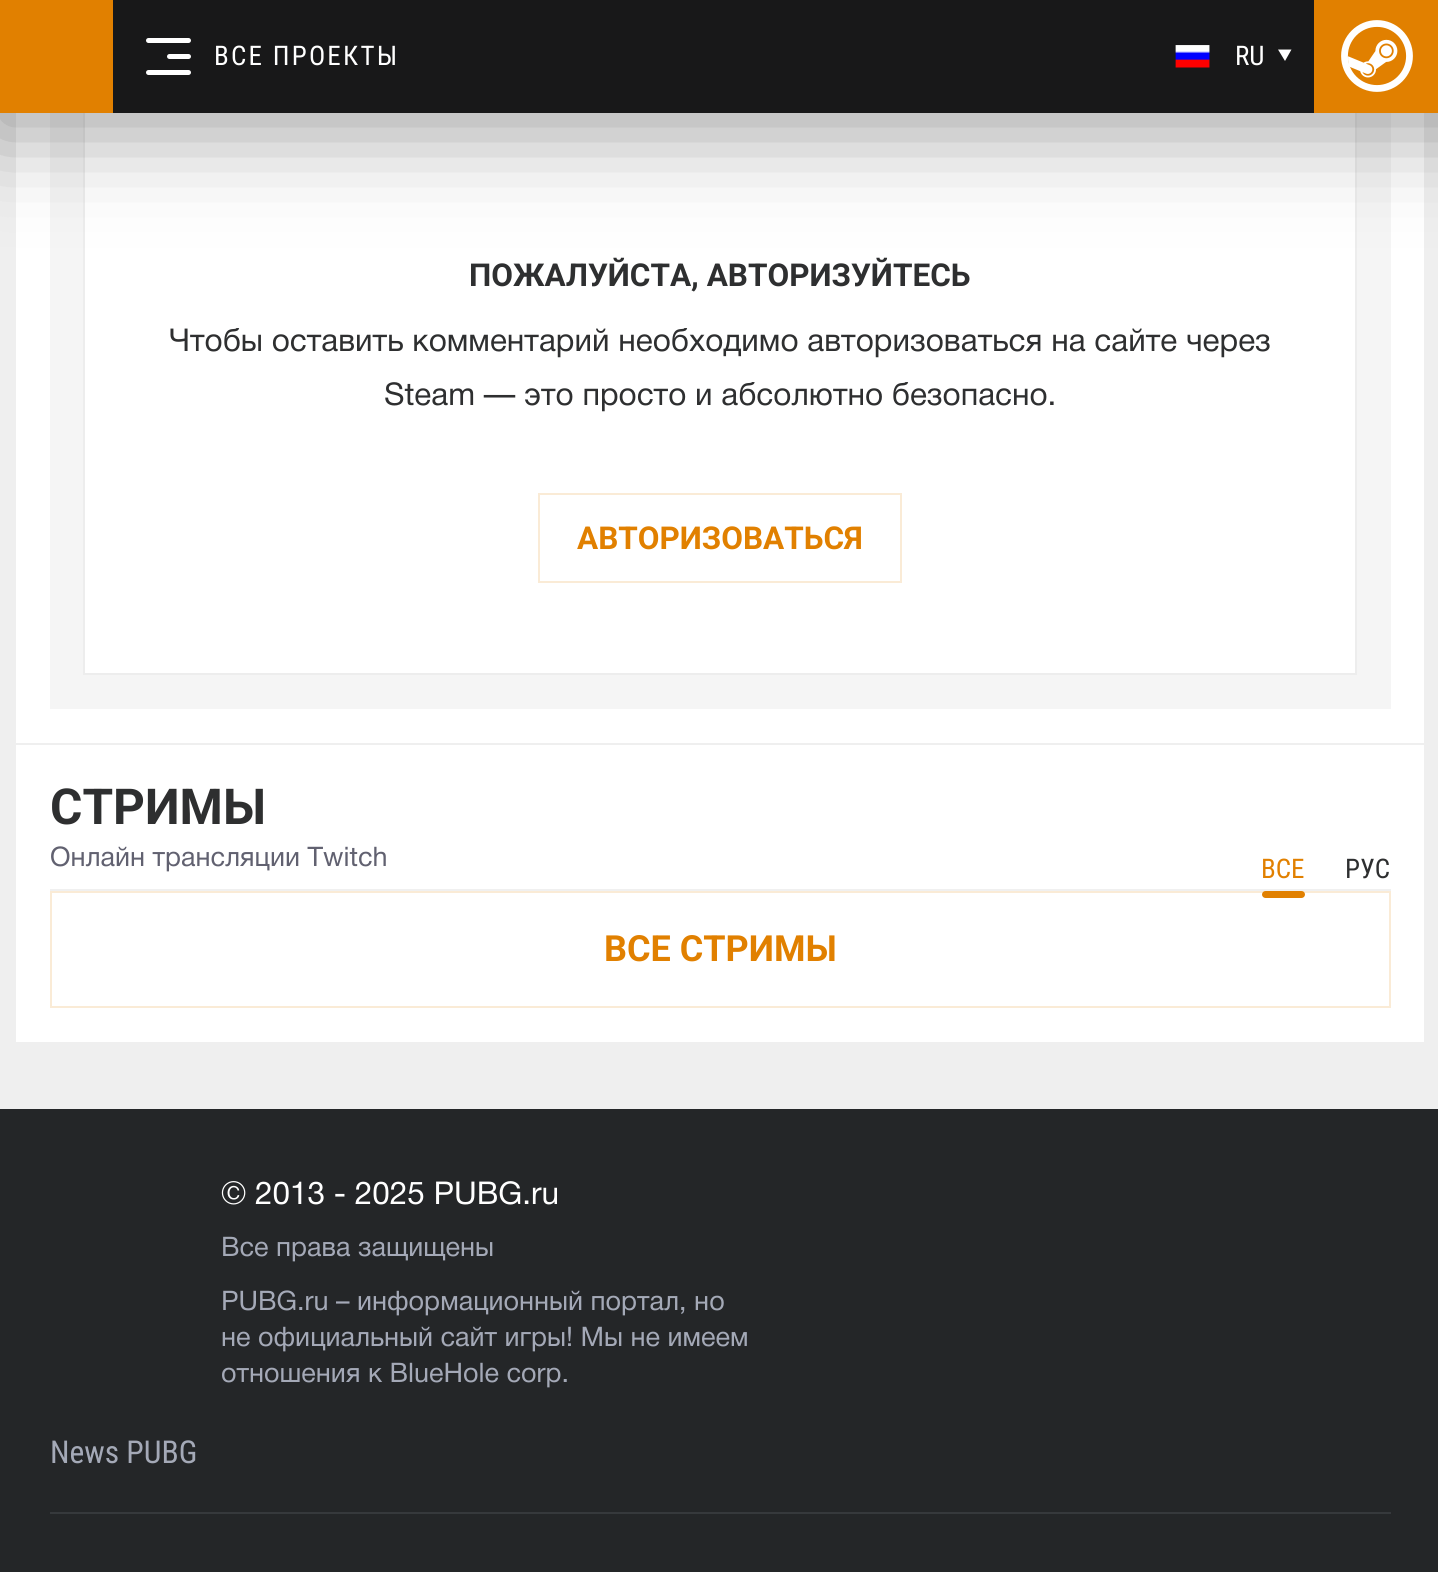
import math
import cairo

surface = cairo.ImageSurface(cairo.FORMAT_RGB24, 1438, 1572)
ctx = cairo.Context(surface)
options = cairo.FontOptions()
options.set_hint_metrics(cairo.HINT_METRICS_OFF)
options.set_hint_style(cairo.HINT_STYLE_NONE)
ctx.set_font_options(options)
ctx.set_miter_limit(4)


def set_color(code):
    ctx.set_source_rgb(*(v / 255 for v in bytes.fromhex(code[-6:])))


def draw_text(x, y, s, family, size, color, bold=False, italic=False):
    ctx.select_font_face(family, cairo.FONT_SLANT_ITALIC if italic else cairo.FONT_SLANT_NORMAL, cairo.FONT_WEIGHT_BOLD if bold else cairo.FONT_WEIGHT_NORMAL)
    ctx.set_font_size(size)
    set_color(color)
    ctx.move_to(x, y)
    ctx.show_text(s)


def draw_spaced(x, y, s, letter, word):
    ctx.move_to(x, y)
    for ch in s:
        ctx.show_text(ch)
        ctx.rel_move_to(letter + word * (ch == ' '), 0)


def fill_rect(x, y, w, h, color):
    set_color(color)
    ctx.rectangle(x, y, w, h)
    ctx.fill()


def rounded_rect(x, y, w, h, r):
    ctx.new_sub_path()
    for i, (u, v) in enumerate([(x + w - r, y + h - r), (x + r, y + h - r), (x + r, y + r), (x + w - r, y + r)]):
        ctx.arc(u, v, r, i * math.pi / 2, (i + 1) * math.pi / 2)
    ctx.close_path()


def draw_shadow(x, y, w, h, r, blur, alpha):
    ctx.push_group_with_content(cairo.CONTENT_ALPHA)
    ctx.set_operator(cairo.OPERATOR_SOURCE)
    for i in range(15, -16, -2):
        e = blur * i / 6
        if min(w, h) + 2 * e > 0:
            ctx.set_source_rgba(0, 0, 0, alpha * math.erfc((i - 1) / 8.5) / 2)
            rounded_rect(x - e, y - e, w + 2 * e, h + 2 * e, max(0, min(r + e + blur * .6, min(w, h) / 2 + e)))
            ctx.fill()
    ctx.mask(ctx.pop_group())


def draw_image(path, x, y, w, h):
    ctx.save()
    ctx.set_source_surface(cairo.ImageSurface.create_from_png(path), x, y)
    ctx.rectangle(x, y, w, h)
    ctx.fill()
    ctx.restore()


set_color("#efefef")
ctx.paint()
fill_rect(16, 113, 1408, 630, "#ffffff")
fill_rect(50, 113, 1341, 596, "#f5f5f5")
fill_rect(85, 113, 1270, 560, "#ffffff")
ctx.rectangle(84, 46, 1272, 628)
set_color("#ededed")
ctx.stroke()
set_color("#1e1e1e")
draw_shadow(-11, -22, 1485, 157, 0, 45, 0.4)
fill_rect(113, 0, 1201, 113, "#181819")
fill_rect(0, 0, 113, 113, "#e18000")
set_color("#ffffff")
rounded_rect(167, 54, 24, 5, 2.5)
ctx.fill()
rounded_rect(146, 38, 45, 5, 2.5)
ctx.fill()
rounded_rect(146, 70, 45, 5, 2.5)
ctx.fill()
ctx.select_font_face("Roboto Condensed")
ctx.set_font_size(27)
draw_spaced(214, 65, "ВСЕ ПРОЕКТЫ", 2.25, 0)
draw_image("assets/img1.png", 1175, 45, 35, 23)
draw_text(1235, 65, "RU", "Roboto Condensed", 27, "#ffffff")
ctx.new_path()
ctx.move_to(1278, 49.5)
ctx.line_to(1291.5, 49.5)
ctx.line_to(1285, 61)
ctx.close_path()
ctx.fill()
fill_rect(1314, 0, 124, 113, "#e18000")
draw_image("assets/img2.png", 1341, 20, 72, 72)
draw_text(469, 286, "ПОЖАЛУЙСТА, АВТОРИЗУЙТЕСЬ", "Roboto", 31.5, "#2e2f30", bold=True)
draw_text(169, 351, "Чтобы оставить комментарий необходимо авторизоваться на сайте через", "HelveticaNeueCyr", 31.5, "#2e2f30")
draw_text(384, 405, "Steam — это просто и абсолютно безопасно.", "HelveticaNeueCyr", 31.5, "#2e2f30")
ctx.rectangle(539, 494, 362, 88)
set_color("#faebd6")
ctx.stroke()
draw_text(577, 549, "АВТОРИЗОВАТЬСЯ", "Roboto", 31.5, "#e18000", bold=True)
fill_rect(16, 745, 1408, 297, "#ffffff")
fill_rect(50, 889, 1341, 2, "#f0f0f0")
draw_text(50, 824, "СТРИМЫ", "Roboto", 49.5, "#2e2f30", bold=True)
draw_text(50, 866, "Онлайн трансляции Twitch", "HelveticaNeueCyr", 27, "#616170")
draw_text(1261, 878, "ВСЕ", "Roboto Condensed", 27, "#e18000")
ctx.rectangle(51, 892, 1339, 115)
set_color("#faebd6")
ctx.stroke()
set_color("#e18000")
rounded_rect(1262, 891, 43, 7, 3.5)
ctx.fill()
draw_text(1345, 878, "РУС", "Roboto Condensed", 27, "#2e2f30")
draw_text(604, 961, "ВСЕ СТРИМЫ", "Roboto", 36, "#e18000", bold=True)
fill_rect(0, 1109, 1438, 463, "#242628")
draw_text(221, 1204, "© 2013 - 2025 PUBG.ru", "HelveticaNeueCyr", 31.5, "#ffffff")
draw_text(221, 1256, "Все права защищены", "HelveticaNeueCyr", 27, "#a4a9b7")
draw_text(221, 1310, "PUBG.ru – информационный портал, но", "HelveticaNeueCyr", 27, "#a4a9b7")
draw_text(221, 1346, "не официальный сайт игры! Мы не имеем", "HelveticaNeueCyr", 27, "#a4a9b7")
draw_text(221, 1382, "отношения к BlueHole corp.", "HelveticaNeueCyr", 27, "#a4a9b7")
fill_rect(50, 1512, 1341, 2, "#36393c")
draw_text(50, 1463, "News PUBG", "Roboto Condensed", 31.5, "#a4a9b7")
surface.write_to_png("output.png")
